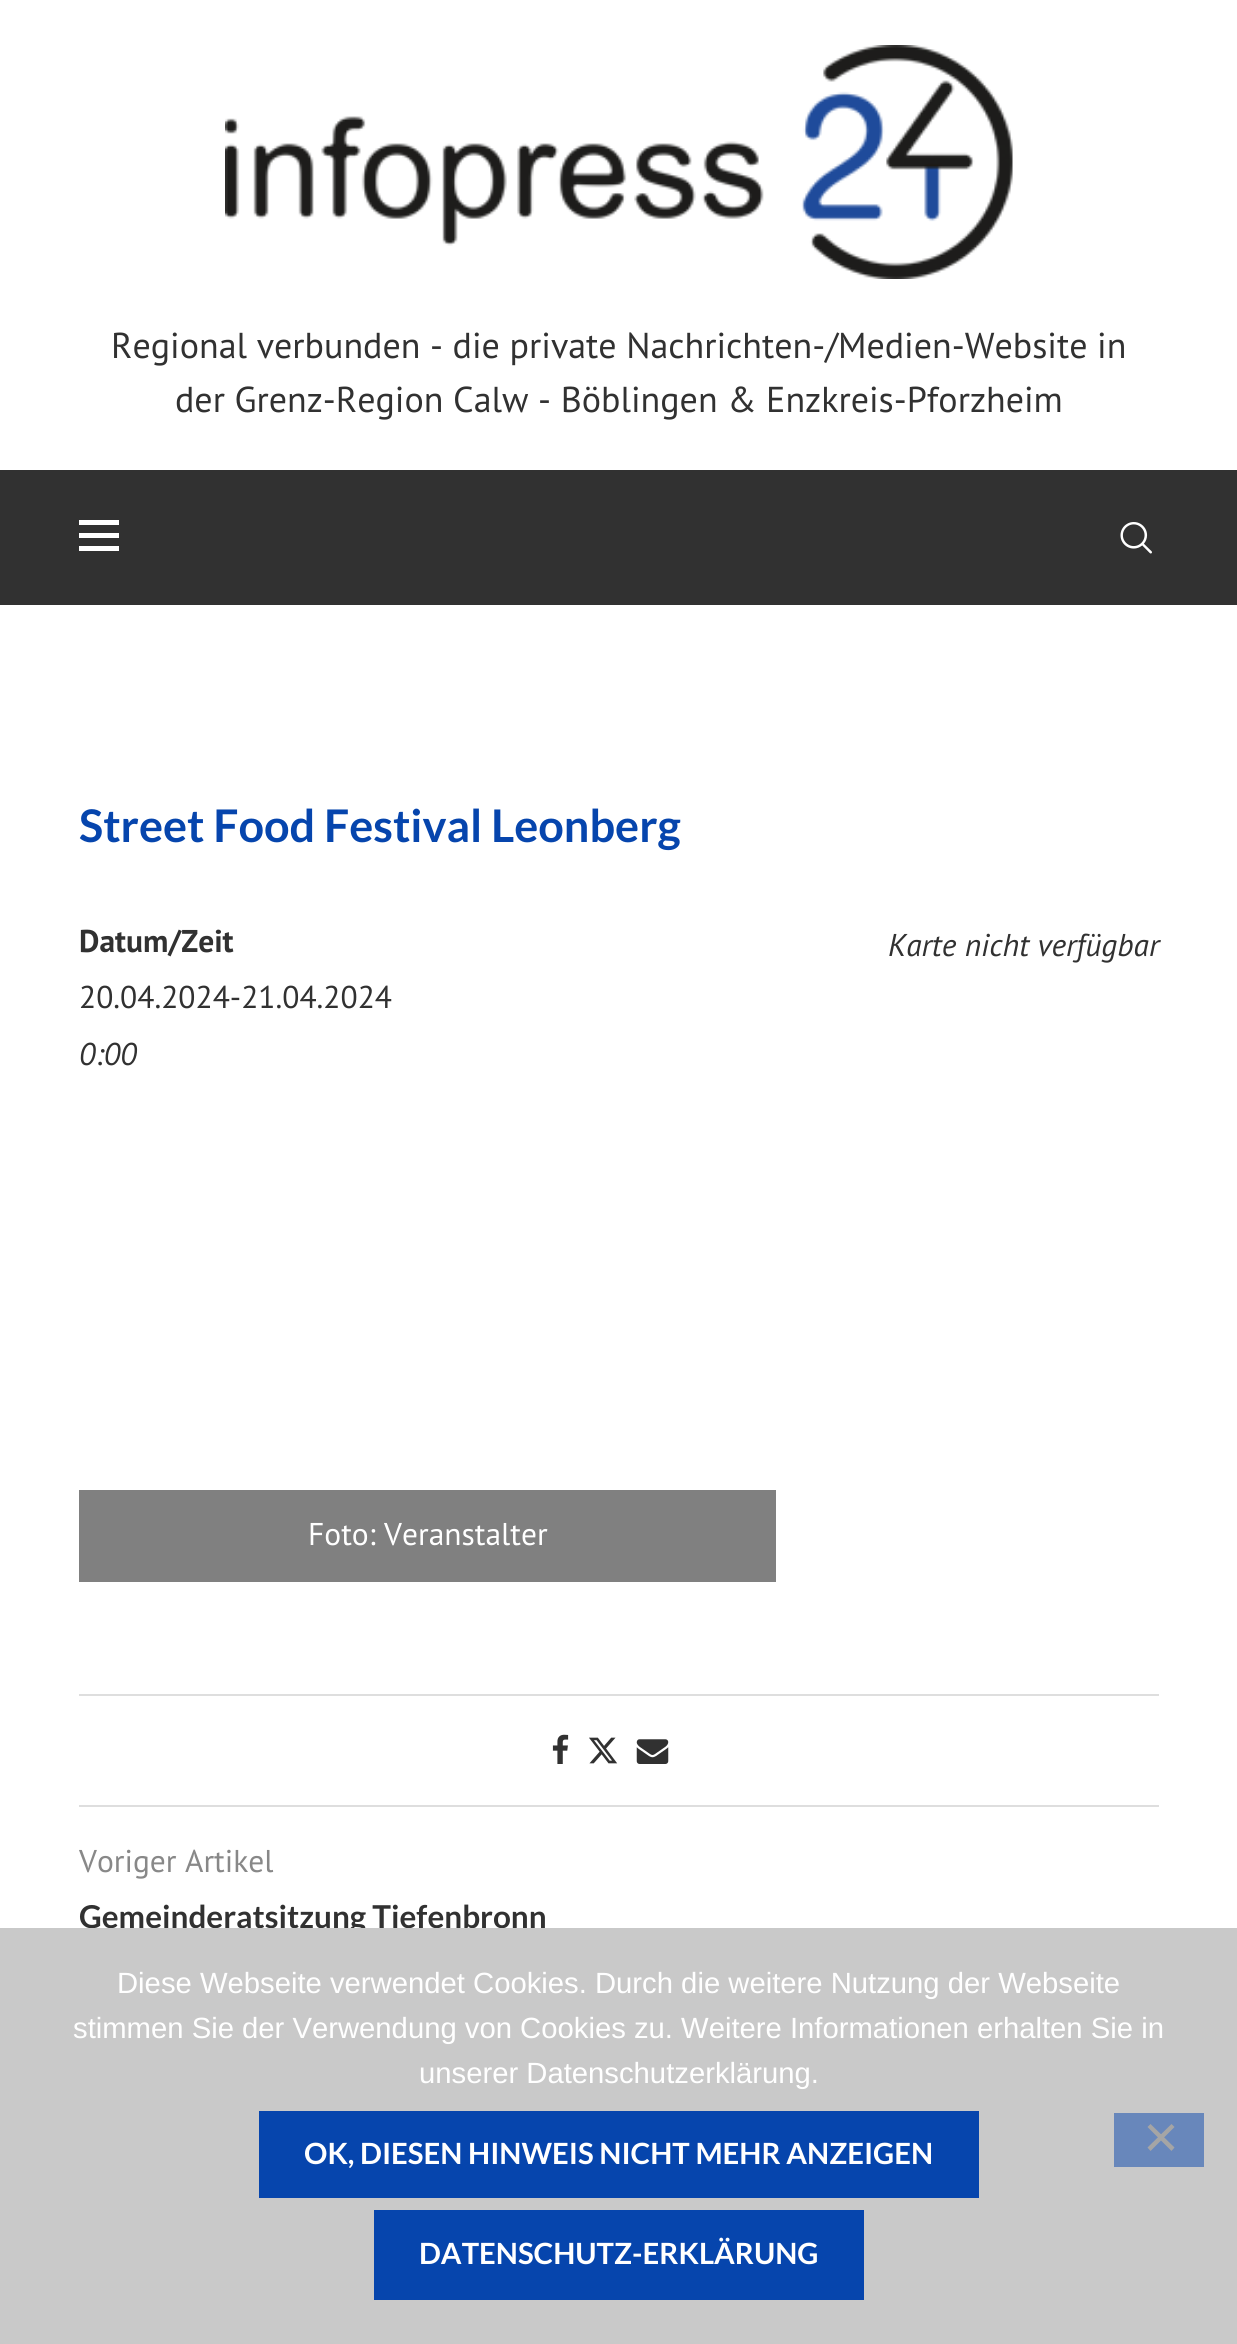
import math
import cairo

surface = cairo.ImageSurface(cairo.FORMAT_RGB24, 1237, 2344)
ctx = cairo.Context(surface)
options = cairo.FontOptions()
options.set_hint_metrics(cairo.HINT_METRICS_OFF)
options.set_hint_style(cairo.HINT_STYLE_NONE)
ctx.set_font_options(options)
ctx.set_miter_limit(4)


def set_color(code):
    ctx.set_source_rgb(*(v / 255 for v in bytes.fromhex(code[-6:])))


def draw_text(x, y, s, family, size, color, bold=False, italic=False):
    ctx.select_font_face(family, cairo.FONT_SLANT_ITALIC if italic else cairo.FONT_SLANT_NORMAL, cairo.FONT_WEIGHT_BOLD if bold else cairo.FONT_WEIGHT_NORMAL)
    ctx.set_font_size(size)
    set_color(color)
    ctx.move_to(x, y)
    ctx.show_text(s)


def fill_rect(x, y, w, h, color):
    set_color(color)
    ctx.rectangle(x, y, w, h)
    ctx.fill()


def draw_image(path, x, y, w, h):
    ctx.save()
    ctx.set_source_surface(cairo.ImageSurface.create_from_png(path), x, y)
    ctx.rectangle(x, y, w, h)
    ctx.fill()
    ctx.restore()


set_color("#ffffff")
ctx.paint()
draw_image("assets/img1.png", 225, 45, 788, 234)
draw_text(111, 358, "Regional verbunden - die private Nachrichten-/Medien-Website in", "PT Sans", 36, "#313131")
draw_text(175, 412, "der Grenz-Region Calw - Böblingen & Enzkreis-Pforzheim", "PT Sans", 36, "#313131")
fill_rect(0, 470, 1237, 135, "#313131")
fill_rect(79, 520, 40, 5, "#ffffff")
fill_rect(79, 533, 40, 5, "#ffffff")
fill_rect(79, 546, 40, 5, "#ffffff")
draw_image("assets/img2.png", 1120, 522, 32, 32)
draw_text(79, 842, "Street Food Festival Leonberg", "Lato", 45, "#0645ad", bold=True)
draw_text(79, 952, "Datum/Zeit", "PT Sans", 31.5, "#313131", bold=True)
draw_text(79, 1008, "20.04.2024-21.04.2024", "PT Sans", 31.5, "#313131")
draw_text(79, 1065, "0:00", "PT Sans", 31.5, "#313131", italic=True)
draw_text(888, 956, "Karte nicht verfügbar", "PT Sans", 31.5, "#313131", italic=True)
fill_rect(79, 1490, 697, 92, "#808080")
draw_text(308, 1545, "Foto: Veranstalter", "PT Sans", 31.5, "#ffffff")
fill_rect(79, 1694, 1080, 2, "#dedede")
draw_image("assets/img3.png", 552, 1734, 17, 30)
draw_image("assets/img4.png", 589, 1737, 29, 27)
draw_image("assets/img5.png", 636, 1739, 33, 25)
fill_rect(79, 1805, 1080, 2, "#dedede")
draw_text(79, 1872, "Voriger Artikel", "PT Sans", 31.5, "#888888")
draw_text(79, 1928, "Gemeinderatsitzung Tiefenbronn", "Lato", 31.5, "#313131", bold=True)
fill_rect(0, 1928, 1237, 416, "#c9c9c9")
draw_text(117, 1993, "Diese Webseite verwendet Cookies. Durch die weitere Nutzung der Webseite", "Liberation Sans", 29.25, "#ffffff")
draw_text(73, 2038, "stimmen Sie der Verwendung von Cookies zu. Weitere Informationen erhalten Sie in", "Liberation Sans", 29.25, "#ffffff")
draw_text(419, 2083, "unserer Datenschutzerklärung.", "Liberation Sans", 29.25, "#ffffff")
fill_rect(259, 2111, 720, 87, "#0645ad")
draw_text(304, 2164, "OK, DIESEN HINWEIS NICHT MEHR ANZEIGEN", "Lato", 29.25, "#ffffff", bold=True)
fill_rect(374, 2210, 490, 90, "#0645ad")
draw_text(419, 2264, "DATENSCHUTZ-ERKLÄRUNG", "Lato", 29.25, "#ffffff", bold=True)
fill_rect(1114, 2113, 90, 54, "#6887bb")
set_color("#a5a5a5")
ctx.new_path()
ctx.move_to(1171.5, 2124)
ctx.line_to(1174.5, 2127)
ctx.line_to(1150.5, 2151)
ctx.line_to(1147.5, 2147.5)
ctx.close_path()
ctx.fill()
ctx.new_path()
ctx.move_to(1147.5, 2127)
ctx.line_to(1150.5, 2124)
ctx.line_to(1174.5, 2147.5)
ctx.line_to(1171.5, 2151)
ctx.close_path()
ctx.fill()
surface.write_to_png("output.png")
